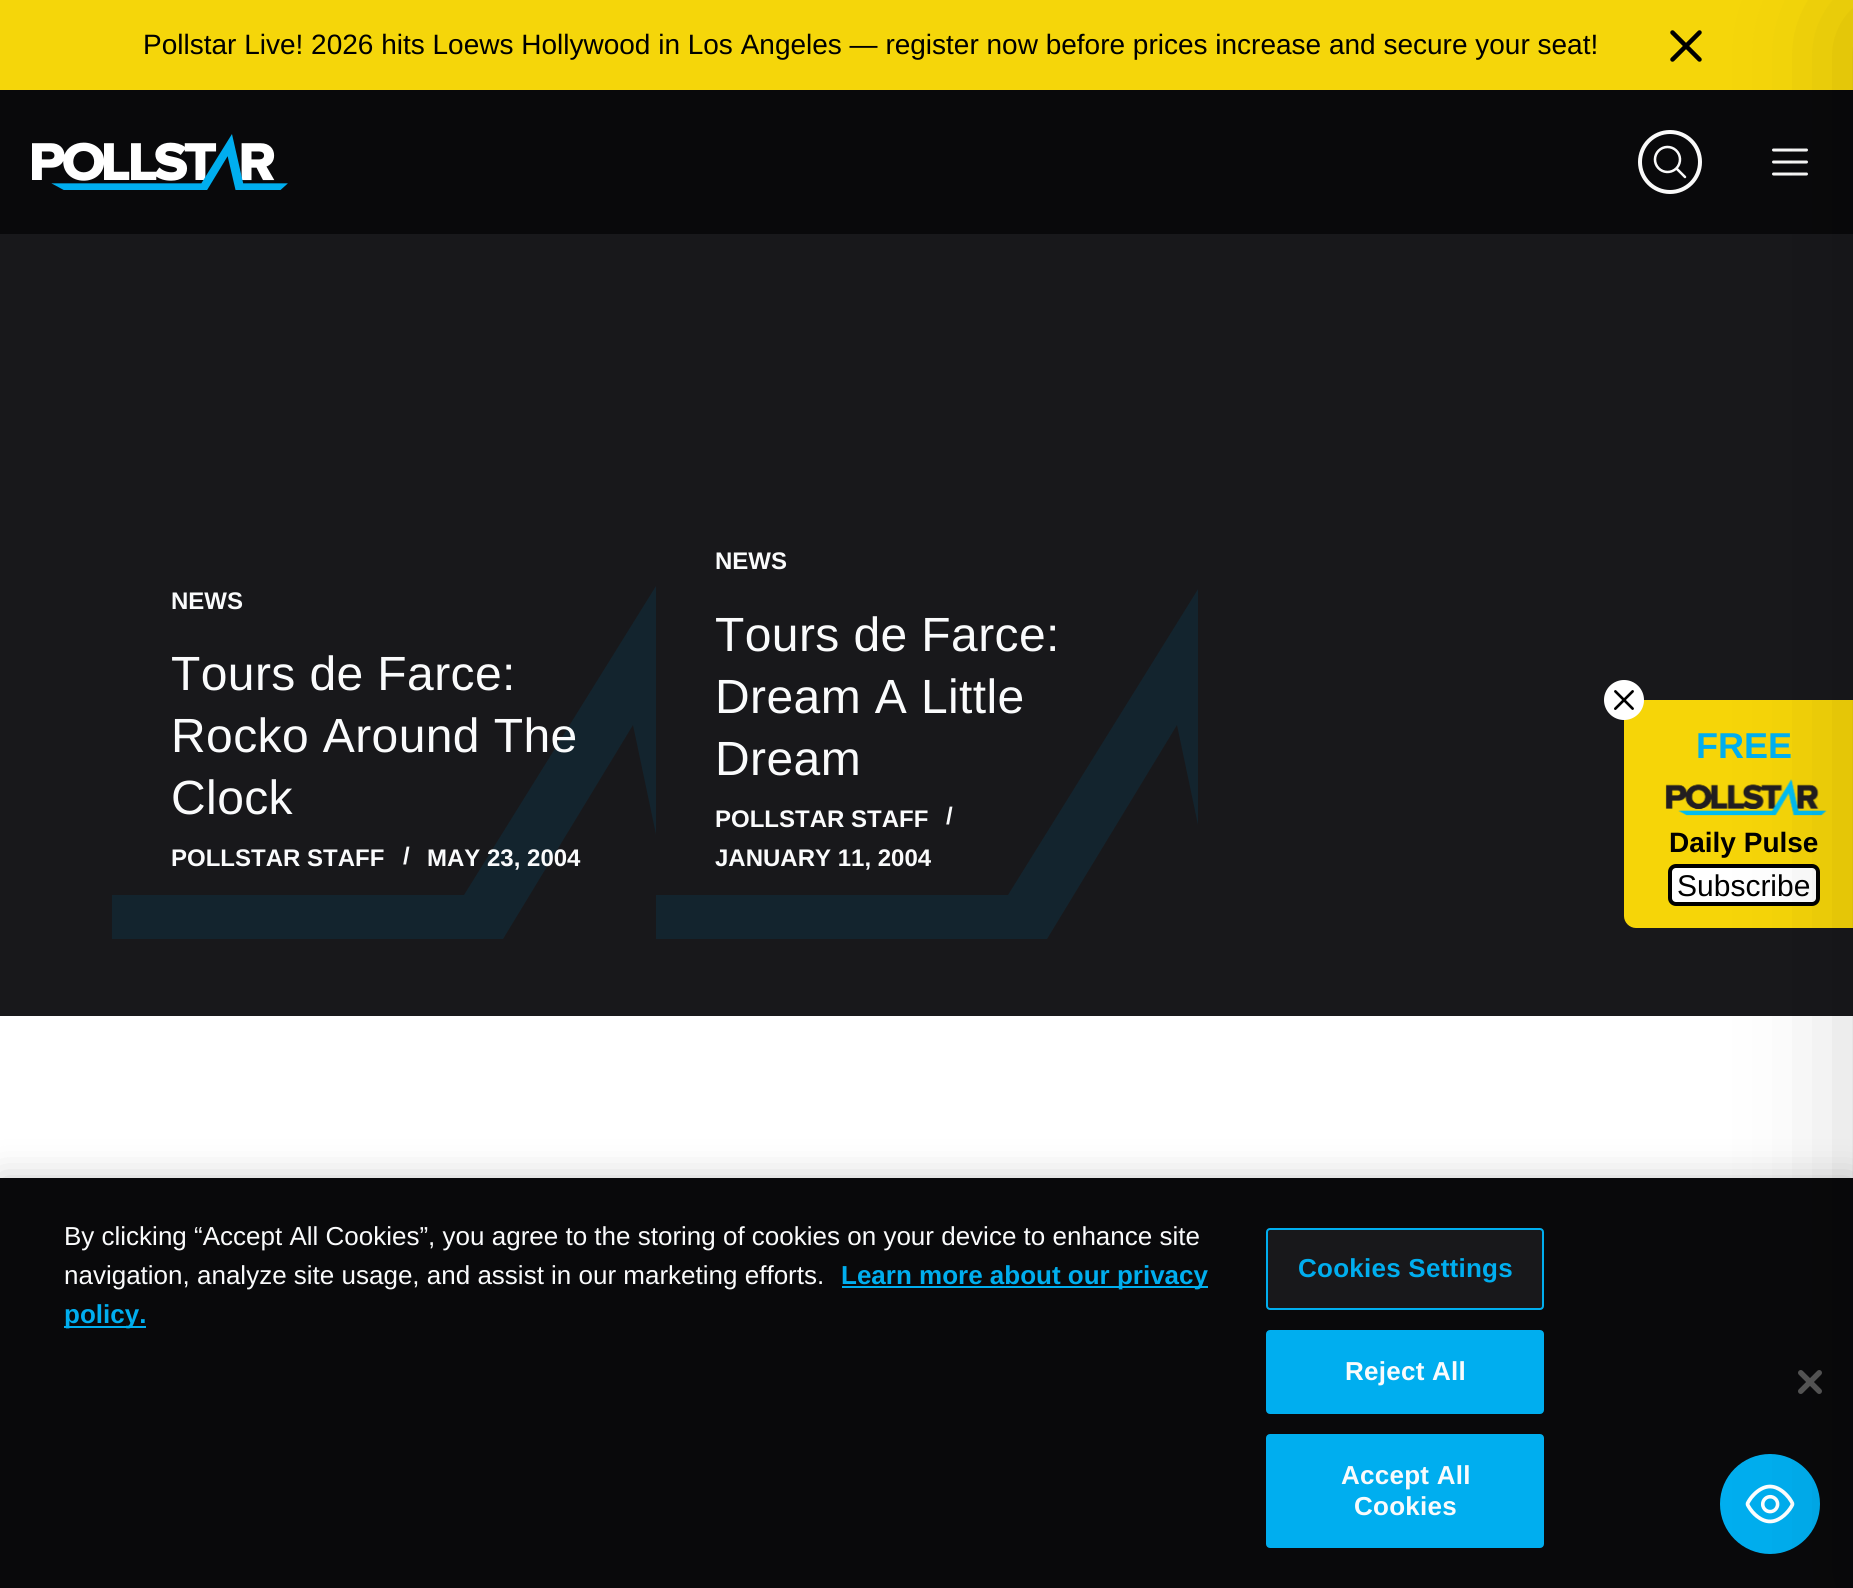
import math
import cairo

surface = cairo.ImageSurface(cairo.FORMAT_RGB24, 1853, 1588)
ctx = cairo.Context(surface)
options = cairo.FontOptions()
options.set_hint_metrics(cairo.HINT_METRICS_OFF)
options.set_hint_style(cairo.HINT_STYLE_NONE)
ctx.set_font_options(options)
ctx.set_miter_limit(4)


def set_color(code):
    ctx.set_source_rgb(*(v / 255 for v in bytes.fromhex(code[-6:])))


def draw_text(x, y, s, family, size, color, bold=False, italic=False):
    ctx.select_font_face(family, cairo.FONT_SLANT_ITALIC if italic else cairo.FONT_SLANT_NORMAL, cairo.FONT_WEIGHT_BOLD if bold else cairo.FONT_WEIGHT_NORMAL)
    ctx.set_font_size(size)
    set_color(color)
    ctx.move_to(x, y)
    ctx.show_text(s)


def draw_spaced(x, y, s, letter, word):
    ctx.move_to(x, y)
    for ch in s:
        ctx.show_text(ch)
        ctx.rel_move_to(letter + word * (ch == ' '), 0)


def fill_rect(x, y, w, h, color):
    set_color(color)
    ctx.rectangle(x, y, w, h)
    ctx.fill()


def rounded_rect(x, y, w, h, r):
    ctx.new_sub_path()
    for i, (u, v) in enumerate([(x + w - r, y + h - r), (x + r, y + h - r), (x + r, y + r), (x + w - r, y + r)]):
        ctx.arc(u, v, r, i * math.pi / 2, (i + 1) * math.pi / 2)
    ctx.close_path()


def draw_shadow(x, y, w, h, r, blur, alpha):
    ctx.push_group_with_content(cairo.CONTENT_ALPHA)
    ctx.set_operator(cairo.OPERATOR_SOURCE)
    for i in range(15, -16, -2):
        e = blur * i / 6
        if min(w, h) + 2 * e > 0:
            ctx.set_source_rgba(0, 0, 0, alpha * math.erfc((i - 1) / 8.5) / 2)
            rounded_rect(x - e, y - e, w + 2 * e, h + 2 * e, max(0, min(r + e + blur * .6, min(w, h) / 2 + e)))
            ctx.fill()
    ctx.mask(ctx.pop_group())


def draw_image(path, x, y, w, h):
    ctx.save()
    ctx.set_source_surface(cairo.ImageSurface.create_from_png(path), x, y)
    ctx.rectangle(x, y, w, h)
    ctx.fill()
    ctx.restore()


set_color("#18181b")
ctx.paint()
fill_rect(0, 0, 1853, 90, "#f5d60a")
draw_image("assets/img1.png", 1670, 30, 32, 32)
fill_rect(0, 90, 1853, 144, "#09090b")
ctx.arc(1670, 162, 30, 0, 2 * math.pi)
set_color("#fafafa")
ctx.set_line_width(4)
ctx.stroke()
draw_image("assets/img3.png", 1653, 145, 34, 34)
draw_image("assets/img4.png", 1772, 148, 36, 28)
set_color("#f6d508")
ctx.new_path()
ctx.move_to(1636, 700)
ctx.line_to(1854, 700)
ctx.line_to(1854, 928)
ctx.line_to(1636, 928)
ctx.curve_to(1629.5, 928, 1624, 922.5, 1624, 916)
ctx.line_to(1624, 712)
ctx.curve_to(1624, 705.5, 1629.5, 700, 1636, 700)
ctx.close_path()
ctx.fill()
draw_image("assets/img6.png", 1665, 779, 162, 37)
set_color("#ffffff")
rounded_rect(1670, 866, 148, 38, 6)
ctx.fill_preserve()
set_color("#000000")
ctx.stroke()
fill_rect(0, 1016, 1853, 162, "#ffffff")
set_color("#000000")
draw_shadow(0, 1178, 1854, 410, 0, 18, 0.2)
fill_rect(0, 1178, 1853, 410, "#09090b")
draw_image("assets/img7.png", 1798, 1370, 24, 24)
set_color("#00aeef")
ctx.arc(1770, 1504, 50, 0, 2 * math.pi)
ctx.fill()
draw_image("assets/img8.png", 1745, 1484, 50, 40)
set_color("#000000")
draw_shadow(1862, 20, 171, 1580, 0, 60, 0.2)
draw_text(143, 54, "Pollstar Live! 2026 hits Loews Hollywood in Los Angeles — register now before prices increase and secure your seat!", "Liberation Sans", 28, "#000000")
draw_image("assets/img2.png", 32, 134, 256, 56)
ctx.save()
ctx.rectangle(112, 586, 544, 354)
ctx.clip()
set_color("#13242e")
ctx.new_path()
ctx.move_to(726, 895)
ctx.line_to(656, 586)
ctx.line_to(464, 895)
ctx.line_to(-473, 895)
ctx.line_to(-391, 939)
ctx.line_to(503, 939)
ctx.line_to(633, 725)
ctx.line_to(678, 939)
ctx.line_to(956, 939)
ctx.line_to(1006, 895)
ctx.close_path()
ctx.fill()
ctx.restore()
draw_text(171, 609, "NEWS", "Liberation Sans", 24, "#fafbfc", bold=True)
ctx.select_font_face("Liberation Sans")
ctx.set_font_size(48)
draw_spaced(171, 690, "Tours de Farce:", 0.4, 0)
draw_spaced(171, 752, "Rocko Around The", 0.4, 0)
draw_spaced(171, 814, "Clock", 0.4, 0)
draw_text(171, 866, "POLLSTAR STAFF", "Liberation Sans", 24, "#fafbfc", bold=True)
draw_text(403, 864, "/", "Liberation Sans", 24, "#fafbfc", bold=True)
draw_text(427, 866, "MAY 23, 2004", "Liberation Sans", 24, "#fafbfc", bold=True)
ctx.save()
ctx.rectangle(656, 586, 542, 354)
ctx.clip()
set_color("#13242e")
ctx.new_path()
ctx.move_to(1270, 895)
ctx.line_to(1200, 586)
ctx.line_to(1008, 895)
ctx.line_to(71, 895)
ctx.line_to(153, 939)
ctx.line_to(1047, 939)
ctx.line_to(1177, 725)
ctx.line_to(1222, 939)
ctx.line_to(1500, 939)
ctx.line_to(1550, 895)
ctx.close_path()
ctx.fill()
ctx.restore()
draw_text(715, 569, "NEWS", "Liberation Sans", 24, "#fafbfc", bold=True)
ctx.select_font_face("Liberation Sans")
ctx.set_font_size(48)
draw_spaced(715, 651, "Tours de Farce:", 0.4, 0)
draw_spaced(715, 713, "Dream A Little", 0.4, 0)
draw_spaced(715, 775, "Dream", 0.4, 0)
draw_text(715, 827, "POLLSTAR STAFF", "Liberation Sans", 24, "#fafbfc", bold=True)
draw_text(946, 824, "/", "Liberation Sans", 24, "#fafbfc", bold=True)
draw_text(715, 866, "JANUARY 11, 2004", "Liberation Sans", 24, "#fafbfc", bold=True)
set_color("#ffffff")
ctx.new_path()
ctx.arc(1624, 700, 20, 0, 2 * math.pi)
ctx.fill()
draw_image("assets/img5.png", 1614, 690, 20, 20)
draw_text(1696, 758, "FREE", "Liberation Sans", 36, "#00aeef", bold=True)
draw_text(1669, 852, "Daily Pulse", "Liberation Sans", 28, "#000000", bold=True)
draw_text(1677, 896, "Subscribe", "Liberation Sans", 30, "#000000")
draw_text(64, 1245, "By clicking “Accept All Cookies”, you agree to the storing of cookies on your device to enhance site", "Liberation Sans", 26, "#fafbfc")
draw_text(64, 1284, "navigation, analyze site usage, and assist in our marketing efforts.", "Liberation Sans", 26, "#fafbfc")
fill_rect(842, 1286, 366, 2, "#00aeef")
draw_text(841, 1284, "Learn more about our privacy", "Liberation Sans", 26, "#00aeef", bold=True)
fill_rect(64, 1326, 82, 2, "#00aeef")
draw_text(64, 1323, "policy.", "Liberation Sans", 26, "#00aeef", bold=True)
set_color("#18181b")
rounded_rect(1267, 1229, 276, 80, 3)
ctx.fill_preserve()
set_color("#00aeef")
ctx.set_line_width(2)
ctx.stroke()
draw_spaced(1298, 1277, "Cookies Settings", 0.25, 0)
rounded_rect(1267, 1331, 276, 82, 3)
ctx.fill_preserve()
ctx.stroke()
set_color("#fafbfc")
draw_spaced(1345, 1380, "Reject All", 0.25, 0)
set_color("#00aeef")
rounded_rect(1267, 1435, 276, 112, 3)
ctx.fill_preserve()
ctx.stroke()
set_color("#fafbfc")
draw_spaced(1341, 1484, "Accept All", 0.25, 0)
draw_spaced(1354, 1515, "Cookies", 0.25, 0)
surface.write_to_png("output.png")
